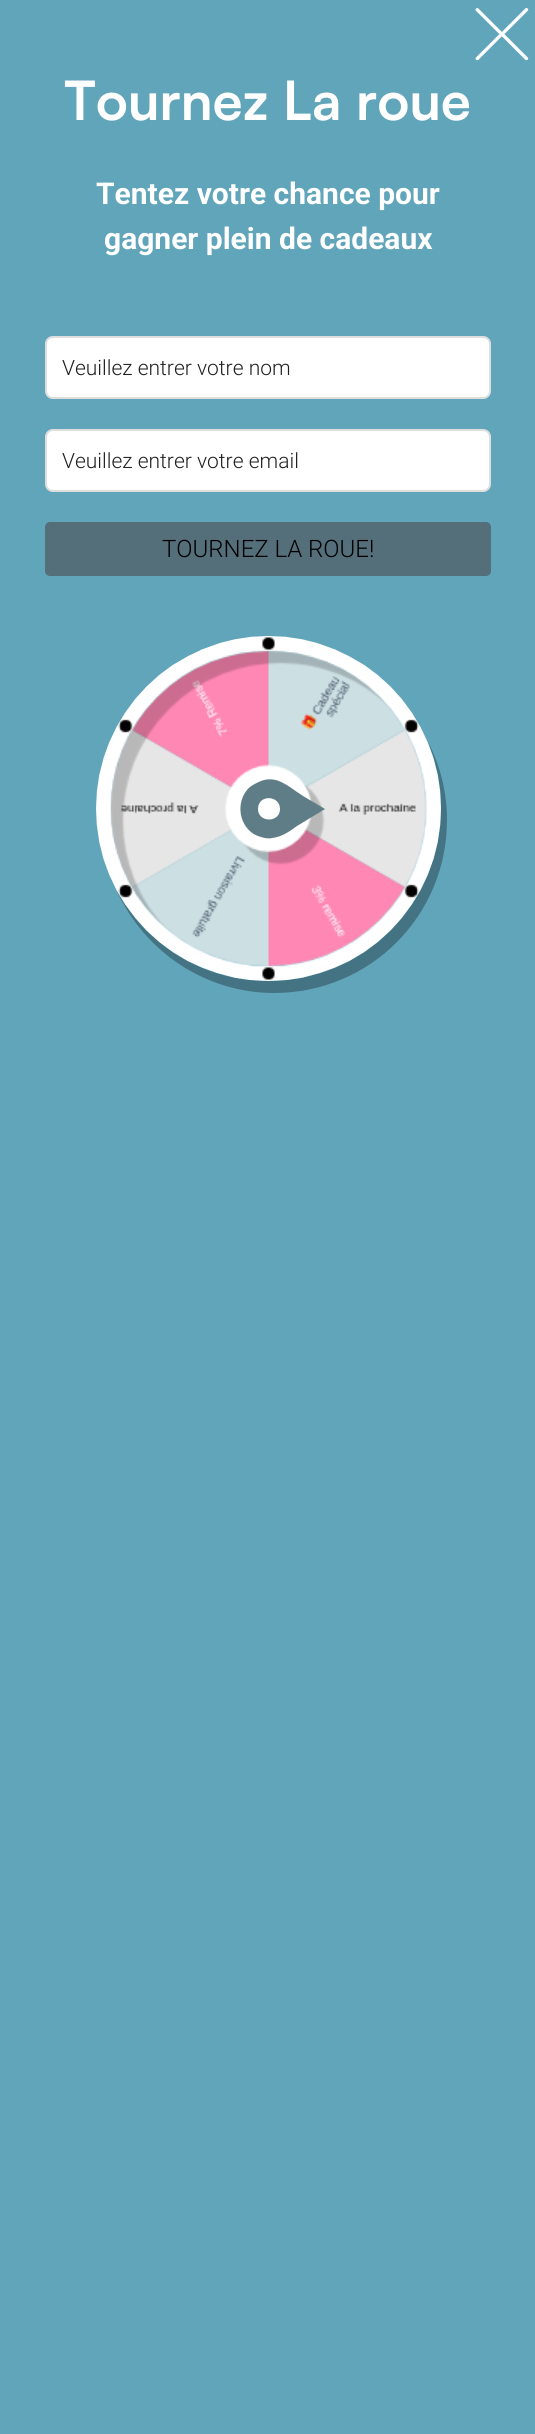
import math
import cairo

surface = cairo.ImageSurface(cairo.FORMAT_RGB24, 535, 2434)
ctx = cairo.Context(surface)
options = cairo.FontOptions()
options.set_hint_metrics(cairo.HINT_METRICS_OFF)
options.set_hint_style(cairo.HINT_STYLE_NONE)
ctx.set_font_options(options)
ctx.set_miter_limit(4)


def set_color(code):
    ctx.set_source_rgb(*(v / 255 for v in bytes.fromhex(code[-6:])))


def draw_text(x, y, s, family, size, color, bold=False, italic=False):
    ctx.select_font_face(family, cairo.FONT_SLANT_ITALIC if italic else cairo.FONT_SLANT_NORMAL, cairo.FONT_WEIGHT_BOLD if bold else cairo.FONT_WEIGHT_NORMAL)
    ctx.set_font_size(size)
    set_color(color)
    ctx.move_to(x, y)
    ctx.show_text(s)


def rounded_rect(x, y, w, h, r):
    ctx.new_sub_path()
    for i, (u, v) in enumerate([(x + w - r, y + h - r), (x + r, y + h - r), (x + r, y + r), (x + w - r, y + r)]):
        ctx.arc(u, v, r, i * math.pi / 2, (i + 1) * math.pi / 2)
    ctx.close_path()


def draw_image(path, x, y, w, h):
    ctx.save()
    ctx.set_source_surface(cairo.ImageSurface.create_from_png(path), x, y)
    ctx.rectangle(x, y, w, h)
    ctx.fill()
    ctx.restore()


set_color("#61a5bb")
ctx.paint()
draw_image("assets/img1.png", 475, 8, 54, 53)
draw_text(64, 120, "Tournez La roue", "Satoshi", 54, "#ffffff", bold=True)
draw_text(96, 204, "Tentez votre chance pour", "Roboto", 30, "#ffffff", bold=True)
draw_text(104, 249, "gagner plein de cadeaux", "Roboto", 30, "#ffffff", bold=True)
rounded_rect(45, 336, 446, 63, 8)
ctx.fill()
rounded_rect(46, 337, 444, 61, 7)
ctx.set_source_rgba(0.133, 0.141, 0.149, 0.15)
ctx.stroke()
draw_text(62, 375, "Veuillez entrer votre nom", "Roboto Light", 21, "#212121")
set_color("#ffffff")
rounded_rect(45, 429, 446, 63, 8)
ctx.fill()
rounded_rect(46, 430, 444, 61, 7)
ctx.set_source_rgba(0.133, 0.141, 0.149, 0.15)
ctx.stroke()
draw_text(62, 468, "Veuillez entrer votre email", "Roboto Light", 21, "#212121")
set_color("#546e7a")
rounded_rect(45, 522, 446, 54, 5)
ctx.fill()
draw_text(162, 557, "TOURNEZ LA ROUE!", "Roboto Light", 24, "#000000")
draw_image("assets/img4.png", 110, 650, 317, 317)
set_color("#447483")
ctx.new_path()
ctx.move_to(117, 891)
ctx.curve_to(144, 951, 205, 993, 274, 993)
ctx.curve_to(370, 993, 447, 916, 447, 820)
ctx.curve_to(447, 790, 439, 762, 426, 738)
ctx.curve_to(436, 759, 441, 783, 441, 808)
ctx.curve_to(441, 904, 364, 981, 268, 981)
ctx.curve_to(203, 981, 147, 945, 117, 891)
ctx.close_path()
ctx.fill()
draw_image("assets/img2.png", 96, 636, 345, 345)
draw_image("assets/img3.png", 118, 637, 301, 343)
set_color("#5f7d86")
ctx.new_path()
ctx.move_to(261, 781)
ctx.curve_to(266, 779, 271, 779, 276, 780)
ctx.curve_to(286, 783, 295, 791, 303, 796)
ctx.line_to(325, 809)
ctx.line_to(297, 826)
ctx.curve_to(290, 831, 282, 837, 272, 838)
ctx.curve_to(269, 839, 264, 838, 261, 837)
ctx.curve_to(241, 832, 234, 806, 247, 790)
ctx.curve_to(250, 786, 256, 783, 261, 781)
ctx.close_path()
ctx.move_to(280, 809)
ctx.curve_to(280, 795, 258, 794, 258, 809)
ctx.curve_to(258, 823, 280, 823, 280, 809)
ctx.close_path()
ctx.fill()
surface.write_to_png("output.png")
